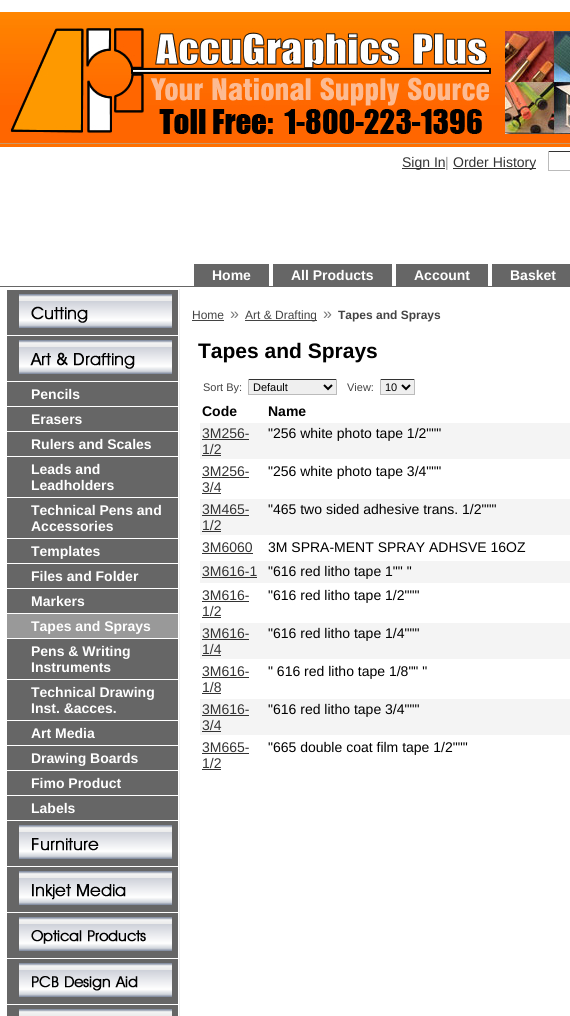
import math
import cairo

surface = cairo.ImageSurface(cairo.FORMAT_RGB24, 570, 1016)
ctx = cairo.Context(surface)
options = cairo.FontOptions()
options.set_hint_metrics(cairo.HINT_METRICS_OFF)
options.set_hint_style(cairo.HINT_STYLE_NONE)
ctx.set_font_options(options)
ctx.set_miter_limit(4)


def set_color(code):
    ctx.set_source_rgb(*(v / 255 for v in bytes.fromhex(code[-6:])))


def draw_text(x, y, s, family, size, color, bold=False, italic=False):
    ctx.select_font_face(family, cairo.FONT_SLANT_ITALIC if italic else cairo.FONT_SLANT_NORMAL, cairo.FONT_WEIGHT_BOLD if bold else cairo.FONT_WEIGHT_NORMAL)
    ctx.set_font_size(size)
    set_color(color)
    ctx.move_to(x, y)
    ctx.show_text(s)


def fill_rect(x, y, w, h, color):
    set_color(color)
    ctx.rectangle(x, y, w, h)
    ctx.fill()


def draw_image(path, x, y, w, h):
    ctx.save()
    ctx.set_source_surface(cairo.ImageSurface.create_from_png(path), x, y)
    ctx.rectangle(x, y, w, h)
    ctx.fill()
    ctx.restore()


set_color("#ffffff")
ctx.paint()
fill_rect(0, 144, 570, 3, "#ff7000")
draw_image("assets/img1.png", 0, 12, 570, 132)
fill_rect(402, 168, 43, 1, "#333333")
draw_text(402, 167, "Sign In", "Liberation Sans", 14, "#333333")
draw_text(445, 167, "|", "Liberation Sans", 14, "#999999")
fill_rect(453, 168, 83, 1, "#333333")
draw_text(453, 167, "Order History", "Liberation Sans", 14, "#333333")
fill_rect(548, 151, 22, 1, "#333333")
fill_rect(548, 170, 22, 1, "#bbbbbb")
fill_rect(548, 151, 1, 20, "#bbbbbb")
fill_rect(194, 264, 75, 22, "#666666")
draw_text(212, 280, "Home", "Liberation Sans", 14, "#ffffff", bold=True)
fill_rect(273, 264, 119, 22, "#666666")
draw_text(291, 280, "All Products", "Liberation Sans", 14, "#ffffff", bold=True)
fill_rect(396, 264, 92, 22, "#666666")
draw_text(414, 280, "Account", "Liberation Sans", 14, "#ffffff", bold=True)
fill_rect(492, 264, 78, 22, "#666666")
draw_text(510, 280, "Basket", "Liberation Sans", 14, "#ffffff", bold=True)
fill_rect(0, 286, 570, 1, "#666666")
fill_rect(179, 289, 1, 727, "#eeeeee")
fill_rect(7, 290, 171, 45, "#666666")
draw_image("assets/img2.png", 19, 294, 153, 34)
fill_rect(7, 336, 171, 45, "#666666")
draw_image("assets/img3.png", 19, 340, 153, 34)
fill_rect(7, 382, 171, 24, "#666666")
draw_text(31, 399, "Pencils", "Liberation Sans", 14, "#ffffff", bold=True)
fill_rect(7, 407, 171, 24, "#666666")
draw_text(31, 424, "Erasers", "Liberation Sans", 14, "#ffffff", bold=True)
fill_rect(7, 432, 171, 24, "#666666")
draw_text(31, 449, "Rulers and Scales", "Liberation Sans", 14, "#ffffff", bold=True)
fill_rect(7, 457, 171, 40, "#666666")
draw_text(31, 474, "Leads and", "Liberation Sans", 14, "#ffffff", bold=True)
draw_text(31, 490, "Leadholders", "Liberation Sans", 14, "#ffffff", bold=True)
fill_rect(7, 498, 171, 40, "#666666")
draw_text(31, 515, "Technical Pens and", "Liberation Sans", 14, "#ffffff", bold=True)
draw_text(31, 531, "Accessories", "Liberation Sans", 14, "#ffffff", bold=True)
fill_rect(7, 539, 171, 24, "#666666")
draw_text(31, 556, "Templates", "Liberation Sans", 14, "#ffffff", bold=True)
fill_rect(7, 564, 171, 24, "#666666")
draw_text(31, 581, "Files and Folder", "Liberation Sans", 14, "#ffffff", bold=True)
fill_rect(7, 589, 171, 24, "#666666")
draw_text(31, 606, "Markers", "Liberation Sans", 14, "#ffffff", bold=True)
fill_rect(7, 614, 171, 24, "#999999")
draw_text(31, 631, "Tapes and Sprays", "Liberation Sans", 14, "#ffffff", bold=True)
fill_rect(7, 639, 171, 40, "#666666")
draw_text(31, 656, "Pens & Writing", "Liberation Sans", 14, "#ffffff", bold=True)
draw_text(31, 672, "Instruments", "Liberation Sans", 14, "#ffffff", bold=True)
fill_rect(7, 680, 171, 40, "#666666")
draw_text(31, 697, "Technical Drawing", "Liberation Sans", 14, "#ffffff", bold=True)
draw_text(31, 713, "Inst. &acces.", "Liberation Sans", 14, "#ffffff", bold=True)
fill_rect(7, 721, 171, 24, "#666666")
draw_text(31, 738, "Art Media", "Liberation Sans", 14, "#ffffff", bold=True)
fill_rect(7, 746, 171, 24, "#666666")
draw_text(31, 763, "Drawing Boards", "Liberation Sans", 14, "#ffffff", bold=True)
fill_rect(7, 771, 171, 24, "#666666")
draw_text(31, 788, "Fimo Product", "Liberation Sans", 14, "#ffffff", bold=True)
fill_rect(7, 796, 171, 24, "#666666")
draw_text(31, 813, "Labels", "Liberation Sans", 14, "#ffffff", bold=True)
fill_rect(7, 821, 171, 45, "#666666")
draw_image("assets/img4.png", 19, 825, 153, 34)
fill_rect(7, 867, 171, 45, "#666666")
draw_image("assets/img5.png", 19, 871, 153, 34)
fill_rect(7, 913, 171, 45, "#666666")
draw_image("assets/img6.png", 19, 917, 153, 34)
fill_rect(7, 959, 171, 45, "#666666")
draw_image("assets/img7.png", 19, 963, 153, 34)
fill_rect(7, 1005, 171, 11, "#666666")
draw_image("assets/img8.png", 19, 1009, 153, 7)
draw_text(192, 319, "Home", "Liberation Sans", 12, "#434343")
fill_rect(192, 320, 32, 1, "#434343")
draw_text(230, 319, "»", "Liberation Sans", 16, "#777777")
fill_rect(245, 320, 72, 1, "#434343")
draw_text(245, 319, "Art & Drafting", "Liberation Sans", 12, "#434343")
draw_text(323, 319, "»", "Liberation Sans", 16, "#777777")
draw_text(338, 319, "Tapes and Sprays", "Liberation Sans", 12, "#434343", bold=True)
draw_text(198, 358, "Tapes and Sprays", "Liberation Sans", 21, "#000000", bold=True)
draw_text(203, 391, "Sort By:", "Liberation Sans", 11, "#434343")
fill_rect(249, 380, 87, 14, "#efefef")
fill_rect(248, 379, 89, 1, "#333333")
fill_rect(336, 379, 1, 16, "#bbbbbb")
fill_rect(248, 394, 89, 1, "#bbbbbb")
fill_rect(248, 379, 1, 16, "#bbbbbb")
ctx.new_path()
ctx.move_to(324, 385)
ctx.line_to(328, 389)
ctx.line_to(332, 385)
set_color("#000000")
ctx.stroke()
draw_text(253, 391, "Default", "Liberation Sans", 11, "#000000")
draw_text(347, 391, "View:", "Liberation Sans", 11, "#434343")
fill_rect(381, 380, 33, 14, "#efefef")
fill_rect(380, 379, 35, 1, "#333333")
fill_rect(414, 379, 1, 16, "#bbbbbb")
fill_rect(380, 394, 35, 1, "#bbbbbb")
fill_rect(380, 379, 1, 16, "#bbbbbb")
ctx.new_path()
ctx.move_to(402, 385)
ctx.line_to(406, 389)
ctx.line_to(410, 385)
set_color("#000000")
ctx.stroke()
draw_text(385, 391, "10", "Liberation Sans", 11, "#000000")
draw_text(202, 416, "Code", "Liberation Sans", 14, "#000000", bold=True)
draw_text(268, 416, "Name", "Liberation Sans", 14, "#000000", bold=True)
fill_rect(200, 423, 370, 36, "#f4f4f4")
draw_text(202, 438, "3M256-", "Liberation Sans", 14, "#333333")
fill_rect(202, 439, 47, 1, "#333333")
draw_text(202, 454, "1/2", "Liberation Sans", 14, "#333333")
fill_rect(202, 455, 19, 1, "#333333")
draw_text(268, 438, "\"256 white photo tape 1/2\"\"\"", "Liberation Sans", 14, "#000000")
draw_text(202, 476, "3M256-", "Liberation Sans", 14, "#333333")
fill_rect(202, 477, 47, 1, "#333333")
draw_text(202, 492, "3/4", "Liberation Sans", 14, "#333333")
fill_rect(202, 493, 19, 1, "#333333")
draw_text(268, 476, "\"256 white photo tape 3/4\"\"\"", "Liberation Sans", 14, "#000000")
fill_rect(200, 499, 370, 36, "#f4f4f4")
draw_text(202, 514, "3M465-", "Liberation Sans", 14, "#333333")
fill_rect(202, 515, 47, 1, "#333333")
draw_text(202, 530, "1/2", "Liberation Sans", 14, "#333333")
fill_rect(202, 531, 19, 1, "#333333")
draw_text(268, 514, "\"465 two sided adhesive trans. 1/2\"\"\"", "Liberation Sans", 14, "#000000")
draw_text(202, 552, "3M6060", "Liberation Sans", 14, "#333333")
fill_rect(202, 553, 51, 1, "#333333")
draw_text(268, 552, "3M SPRA-MENT SPRAY ADHSVE 16OZ", "Liberation Sans", 14, "#000000")
fill_rect(200, 561, 370, 22, "#f4f4f4")
draw_text(202, 576, "3M616-1", "Liberation Sans", 14, "#333333")
fill_rect(202, 577, 55, 1, "#333333")
draw_text(268, 576, "\"616 red litho tape 1\"\" \"", "Liberation Sans", 14, "#000000")
draw_text(202, 600, "3M616-", "Liberation Sans", 14, "#333333")
fill_rect(202, 601, 47, 1, "#333333")
draw_text(202, 616, "1/2", "Liberation Sans", 14, "#333333")
fill_rect(202, 617, 19, 1, "#333333")
draw_text(268, 600, "\"616 red litho tape 1/2\"\"\"", "Liberation Sans", 14, "#000000")
fill_rect(200, 623, 370, 36, "#f4f4f4")
draw_text(202, 638, "3M616-", "Liberation Sans", 14, "#333333")
fill_rect(202, 639, 47, 1, "#333333")
draw_text(202, 654, "1/4", "Liberation Sans", 14, "#333333")
fill_rect(202, 655, 19, 1, "#333333")
draw_text(268, 638, "\"616 red litho tape 1/4\"\"\"", "Liberation Sans", 14, "#000000")
draw_text(202, 676, "3M616-", "Liberation Sans", 14, "#333333")
fill_rect(202, 677, 47, 1, "#333333")
draw_text(202, 692, "1/8", "Liberation Sans", 14, "#333333")
fill_rect(202, 693, 19, 1, "#333333")
draw_text(268, 676, "\" 616 red litho tape 1/8\"\" \"", "Liberation Sans", 14, "#000000")
fill_rect(200, 699, 370, 36, "#f4f4f4")
draw_text(202, 714, "3M616-", "Liberation Sans", 14, "#333333")
fill_rect(202, 715, 47, 1, "#333333")
draw_text(202, 730, "3/4", "Liberation Sans", 14, "#333333")
fill_rect(202, 731, 19, 1, "#333333")
draw_text(268, 714, "\"616 red litho tape 3/4\"\"\"", "Liberation Sans", 14, "#000000")
draw_text(202, 752, "3M665-", "Liberation Sans", 14, "#333333")
fill_rect(202, 753, 47, 1, "#333333")
draw_text(202, 768, "1/2", "Liberation Sans", 14, "#333333")
fill_rect(202, 769, 19, 1, "#333333")
draw_text(268, 752, "\"665 double coat film tape 1/2\"\"\"", "Liberation Sans", 14, "#000000")
surface.write_to_png("output.png")
